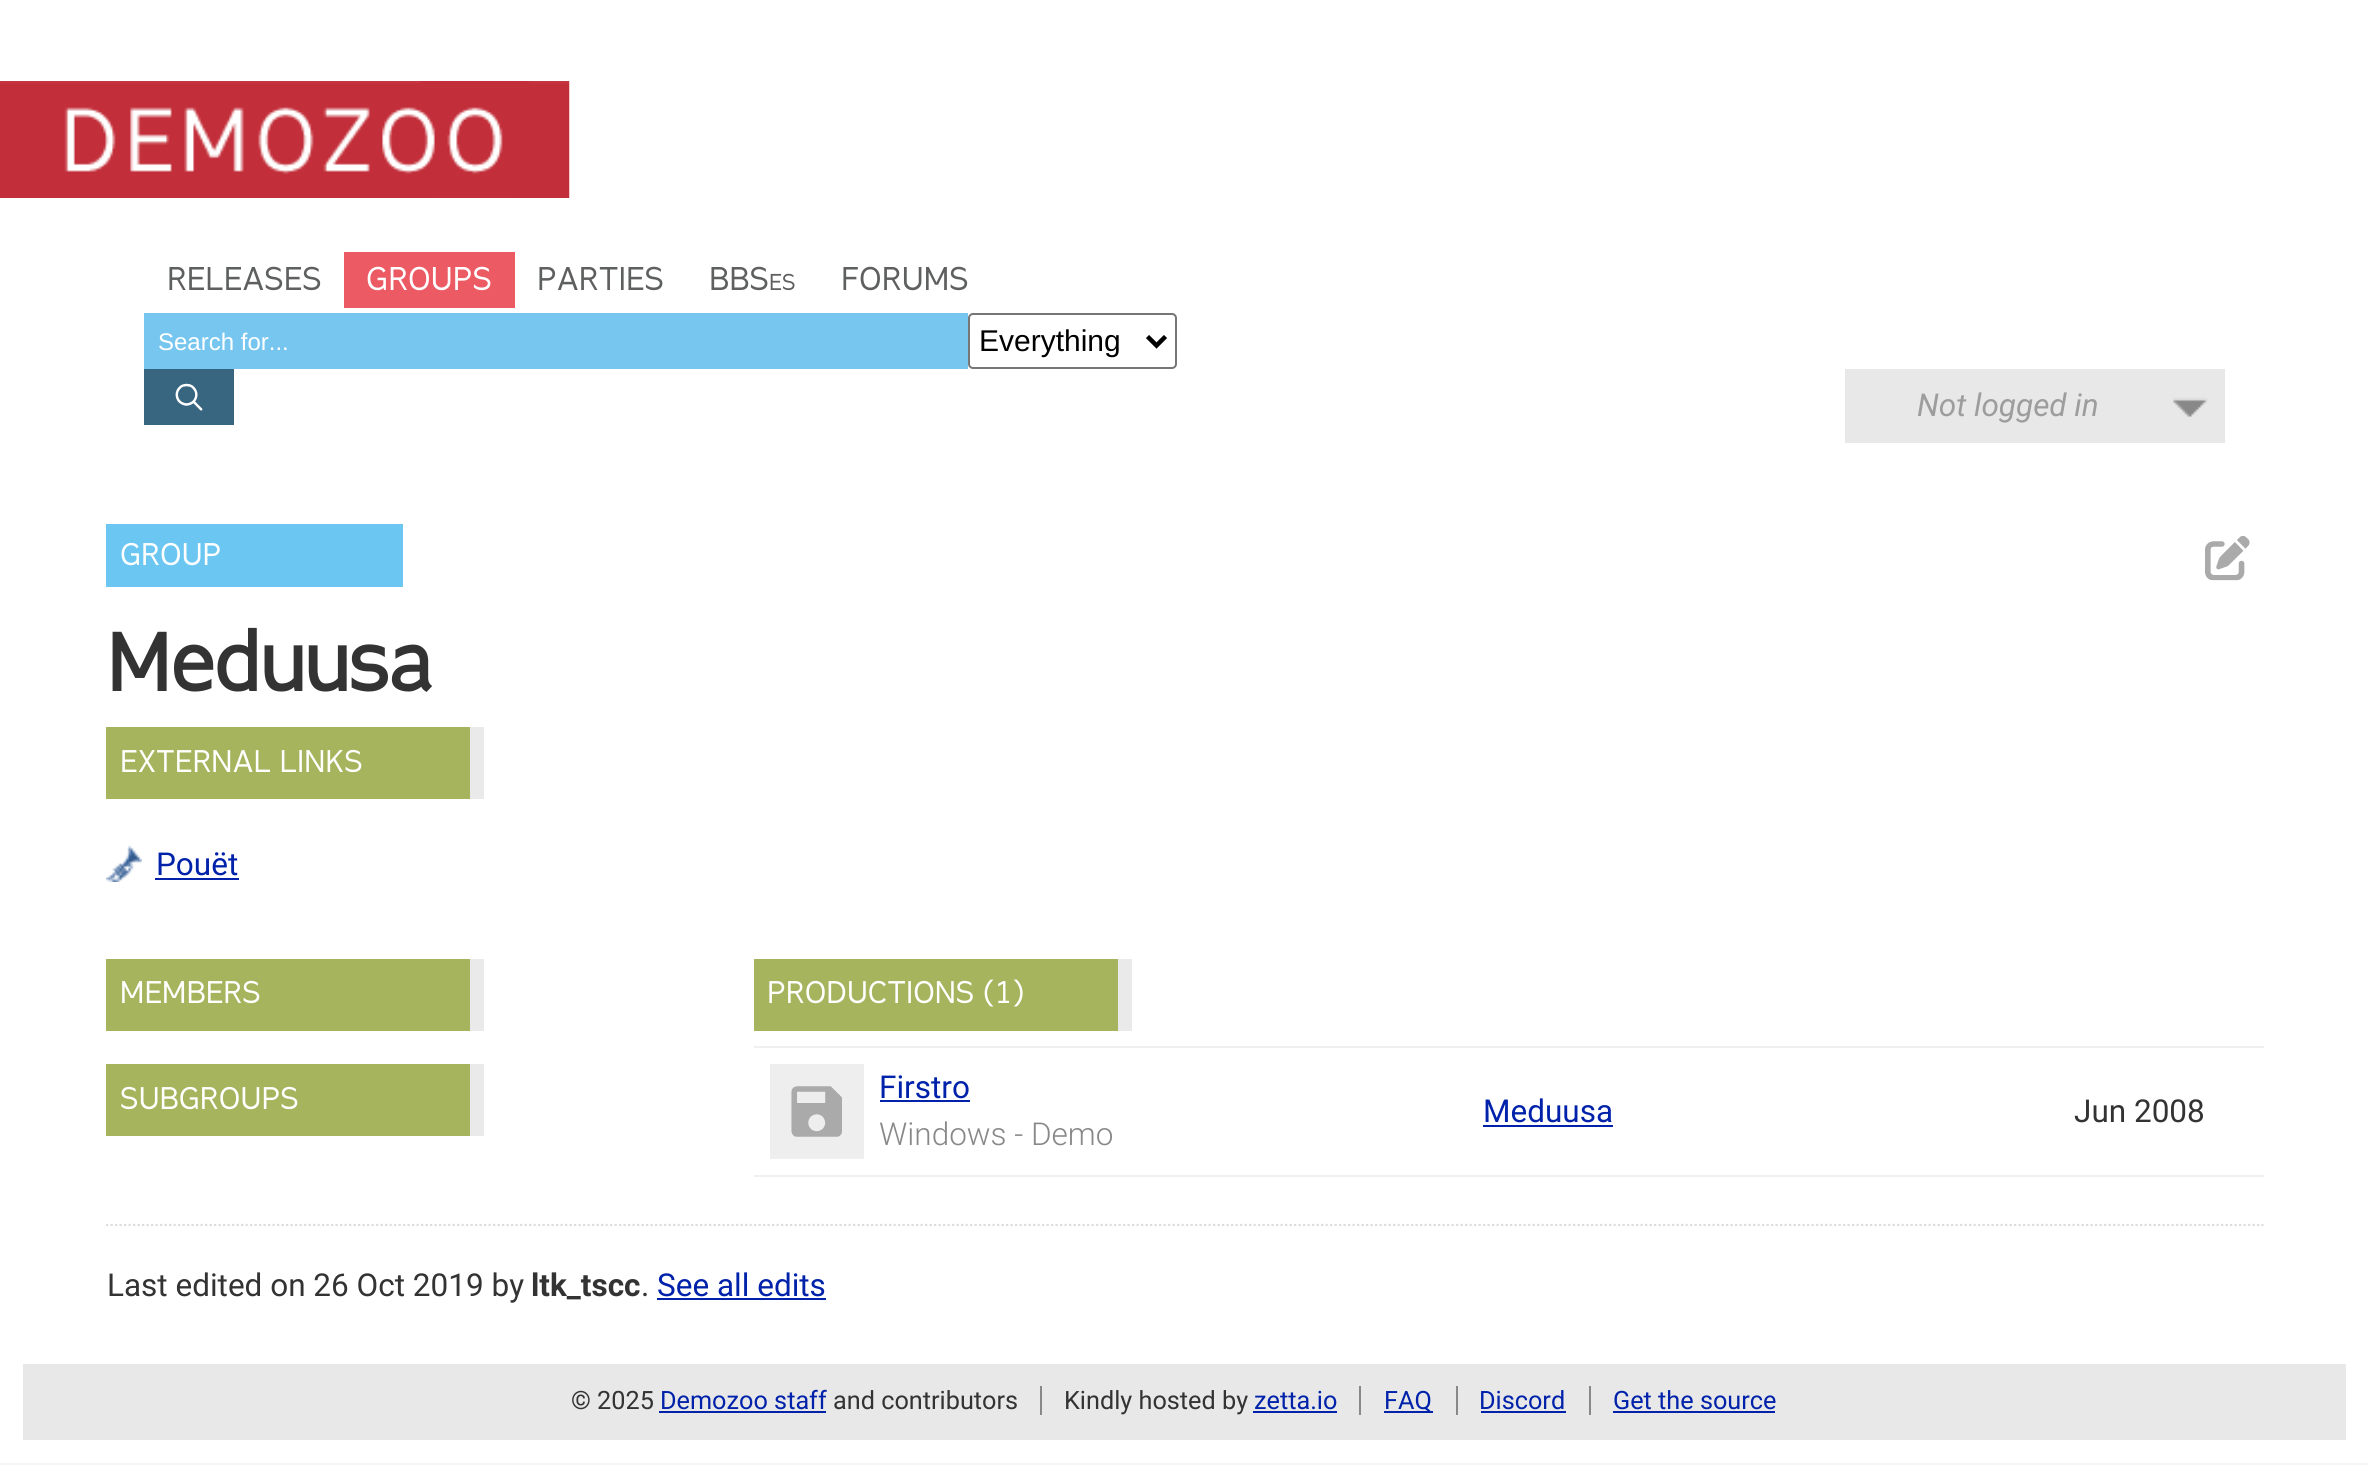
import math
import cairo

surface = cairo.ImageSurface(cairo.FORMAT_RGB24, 2368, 1465)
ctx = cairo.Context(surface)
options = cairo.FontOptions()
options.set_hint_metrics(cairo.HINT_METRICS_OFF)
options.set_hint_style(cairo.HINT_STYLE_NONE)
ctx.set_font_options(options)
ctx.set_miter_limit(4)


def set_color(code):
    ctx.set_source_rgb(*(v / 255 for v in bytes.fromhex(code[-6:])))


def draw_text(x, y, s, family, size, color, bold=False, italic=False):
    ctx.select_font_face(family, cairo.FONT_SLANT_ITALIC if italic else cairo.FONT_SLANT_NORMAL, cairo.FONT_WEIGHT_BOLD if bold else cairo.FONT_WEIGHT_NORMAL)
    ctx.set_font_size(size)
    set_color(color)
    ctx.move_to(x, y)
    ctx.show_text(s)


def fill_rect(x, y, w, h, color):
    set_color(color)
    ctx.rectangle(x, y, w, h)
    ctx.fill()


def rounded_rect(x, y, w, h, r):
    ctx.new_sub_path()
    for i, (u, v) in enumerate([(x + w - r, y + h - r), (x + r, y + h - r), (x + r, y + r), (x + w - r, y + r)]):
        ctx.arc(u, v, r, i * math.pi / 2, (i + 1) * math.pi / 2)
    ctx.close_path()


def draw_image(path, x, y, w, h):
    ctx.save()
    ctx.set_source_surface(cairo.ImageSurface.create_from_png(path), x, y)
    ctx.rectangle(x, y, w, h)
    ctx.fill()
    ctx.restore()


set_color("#f5f5f5")
ctx.paint()
fill_rect(0, 0, 2368, 1341, "#ffffff")
draw_image("assets/img1.png", 0, 81, 570, 117)
draw_text(167, 290, "RELEASES", "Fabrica", 31.5, "#5e5f5f")
fill_rect(344, 252, 171, 56, "#ec5a64")
draw_text(366, 290, "GROUPS", "Fabrica", 31.5, "#ffffff")
draw_text(537, 290, "PARTIES", "Fabrica", 31.5, "#5e5f5f")
draw_text(709, 290, "BBS", "Fabrica", 31.5, "#5e5f5f")
draw_text(769, 290, "ES", "Fabrica", 22, "#5e5f5f")
draw_text(841, 290, "FORUMS", "Fabrica", 31.5, "#5e5f5f")
fill_rect(144, 313, 824, 56, "#77c6ef")
draw_text(158, 350, "Search for...", "Liberation Sans", 24, "#ffffff")
rounded_rect(969, 314, 207, 54, 4)
set_color("#767676")
ctx.stroke()
ctx.new_path()
ctx.move_to(1147.5, 336.5)
ctx.line_to(1156.5, 345.5)
ctx.line_to(1165.5, 336.5)
set_color("#000000")
ctx.set_line_width(4.5)
ctx.stroke()
draw_text(979, 351, "Everything", "Liberation Sans", 30, "#000000")
fill_rect(144, 369, 90, 56, "#386580")
draw_image("assets/img2.png", 175, 383, 28, 28)
fill_rect(1845, 369, 380, 74, "#e8e8e8")
draw_image("assets/img3.png", 2173, 397, 35, 21)
draw_text(1917, 416, "Not logged in", "Roboto", 31.5, "#9d9d9d", italic=True)
fill_rect(106, 524, 297, 63, "#6bc7f1")
draw_text(120, 565, "GROUP", "Fabrica", 30, "#ffffff")
draw_image("assets/img4.png", 2205, 536, 45, 45)
draw_text(107, 691, "Meduusa", "Fabrica", 78, "#333333", bold=True)
fill_rect(106, 727, 364, 72, "#a5b45d")
fill_rect(470, 727, 14, 72, "#eaeaea")
draw_text(120, 772, "EXTERNAL LINKS", "Fabrica", 30, "#ffffff")
draw_image("assets/img5.png", 106, 846, 36, 36)
draw_text(156, 875, "Pouët", "Roboto", 31.5, "#0022aa")
fill_rect(155, 878, 84, 2, "#0022aa")
fill_rect(106, 959, 364, 72, "#a5b45d")
fill_rect(470, 959, 14, 72, "#eaeaea")
draw_text(120, 1003, "MEMBERS", "Fabrica", 30, "#ffffff")
fill_rect(106, 1064, 364, 72, "#a5b45d")
fill_rect(470, 1064, 14, 72, "#eaeaea")
draw_text(120, 1109, "SUBGROUPS", "Fabrica", 30, "#ffffff")
fill_rect(754, 959, 364, 72, "#a5b45d")
fill_rect(1118, 959, 14, 72, "#eaeaea")
draw_text(767, 1003, "PRODUCTIONS (1)", "Fabrica", 30, "#ffffff")
fill_rect(754, 1046, 1510, 2, "#f0f0f0")
fill_rect(754, 1175, 1510, 2, "#f0f0f0")
fill_rect(770, 1064, 94, 95, "#eeeeee")
draw_image("assets/img6.png", 791, 1086, 51, 51)
draw_text(879, 1098, "Firstro", "Roboto", 31.5, "#0022aa")
fill_rect(880, 1100, 90, 2, "#0022aa")
draw_text(879, 1145, "Windows - Demo", "Roboto Light", 31.5, "#888888")
draw_text(1483, 1122, "Meduusa", "Roboto", 31.5, "#0022aa")
fill_rect(1483, 1125, 130, 2, "#0022aa")
draw_text(2074, 1122, "Jun 2008", "Roboto", 31.5, "#333333")
ctx.new_path()
ctx.move_to(106, 1225)
ctx.line_to(2263.5, 1225)
set_color("#dddddd")
ctx.set_line_width(2.2)
ctx.set_dash([2.25, 2.25])
ctx.stroke()
draw_text(107, 1296, "Last edited on 26 Oct 2019 by", "Roboto", 31.5, "#333333")
draw_text(531, 1296, "ltk_tscc", "Roboto", 31.5, "#333333", bold=True)
draw_text(641, 1296, ".", "Roboto", 31.5, "#333333")
draw_text(657, 1296, "See all edits", "Roboto", 31.5, "#0022aa")
fill_rect(657, 1298, 169, 2, "#0022aa")
set_color("#e8e8e8")
ctx.rectangle(11.5, 1352.5, 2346, 99)
ctx.fill_preserve()
set_color("#ffffff")
ctx.set_line_width(23)
ctx.set_dash([])
ctx.stroke()
draw_text(571, 1409, "© 2025", "Roboto", 25.25, "#333333")
draw_text(660, 1409, "Demozoo staff", "Roboto", 25.25, "#0022aa")
fill_rect(659, 1411, 167, 2, "#0022aa")
draw_text(833, 1409, "and contributors", "Roboto", 25.25, "#333333")
draw_text(1064, 1409, "Kindly hosted by", "Roboto", 25.25, "#333333")
fill_rect(1040, 1386, 2, 29, "#888888")
fill_rect(1253, 1411, 84, 2, "#0022aa")
draw_text(1254, 1409, "zetta.io", "Roboto", 25.25, "#0022aa")
fill_rect(1384, 1411, 49, 2, "#0022aa")
draw_text(1384, 1409, "FAQ", "Roboto", 25.25, "#0022aa")
fill_rect(1359, 1386, 2, 29, "#888888")
draw_text(1479, 1409, "Discord", "Roboto", 25.25, "#0022aa")
fill_rect(1456, 1386, 2, 29, "#888888")
fill_rect(1481, 1411, 85, 2, "#0022aa")
draw_text(1613, 1409, "Get the source", "Roboto", 25.25, "#0022aa")
fill_rect(1589, 1386, 2, 29, "#888888")
fill_rect(1613, 1411, 162, 2, "#0022aa")
surface.write_to_png("output.png")
